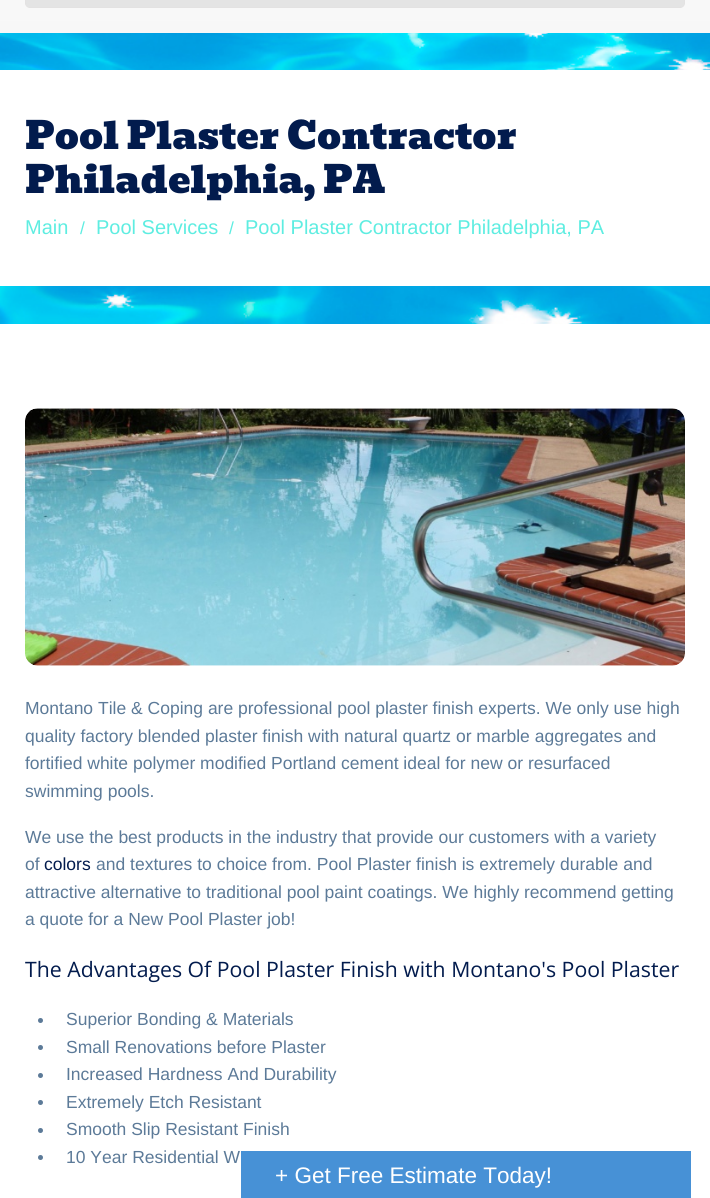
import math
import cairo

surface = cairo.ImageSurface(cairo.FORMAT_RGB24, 710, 1198)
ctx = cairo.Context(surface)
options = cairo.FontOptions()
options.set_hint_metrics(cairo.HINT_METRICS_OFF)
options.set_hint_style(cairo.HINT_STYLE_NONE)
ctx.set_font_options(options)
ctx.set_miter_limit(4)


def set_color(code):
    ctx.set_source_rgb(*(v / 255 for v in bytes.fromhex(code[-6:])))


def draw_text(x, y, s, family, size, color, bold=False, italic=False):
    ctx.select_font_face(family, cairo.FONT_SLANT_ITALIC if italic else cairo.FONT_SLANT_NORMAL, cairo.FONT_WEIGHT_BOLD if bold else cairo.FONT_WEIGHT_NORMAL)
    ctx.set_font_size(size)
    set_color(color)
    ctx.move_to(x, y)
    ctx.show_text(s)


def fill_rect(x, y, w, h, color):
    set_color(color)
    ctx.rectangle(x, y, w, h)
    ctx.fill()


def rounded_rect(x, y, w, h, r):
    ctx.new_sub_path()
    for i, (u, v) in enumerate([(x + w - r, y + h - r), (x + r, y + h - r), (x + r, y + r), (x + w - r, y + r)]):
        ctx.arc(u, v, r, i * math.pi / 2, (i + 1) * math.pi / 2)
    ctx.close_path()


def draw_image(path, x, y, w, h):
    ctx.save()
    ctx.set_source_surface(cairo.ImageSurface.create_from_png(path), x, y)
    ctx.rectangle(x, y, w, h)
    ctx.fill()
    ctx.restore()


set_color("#ffffff")
ctx.paint()
draw_image("assets/img1.png", 0, 33, 710, 291)
gradient = cairo.LinearGradient(355, -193, 355, 33)
gradient.add_color_stop_rgba(0, 1, 1, 1, 1)
gradient.add_color_stop_rgba(1, 0.969, 0.969, 0.969, 1)
ctx.set_source(gradient)
ctx.rectangle(0, 0, 710, 33)
ctx.fill()
set_color("#e4e4e4")
rounded_rect(25.5, -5.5, 659, 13, 4.5)
ctx.fill_preserve()
set_color("#e3e2e2")
ctx.set_line_width(1)
ctx.stroke()
fill_rect(0, 70, 710, 216, "#ffffff")
draw_text(25, 149, "Pool Plaster Contractor", "Bevan", 37.5, "#021b4d")
draw_text(25, 193, "Philadelphia, PA", "Bevan", 37.5, "#021b4d")
draw_text(25, 234, "Main", "Liberation Sans", 20, "#5eede1")
draw_text(80, 234, "/", "Liberation Sans", 17.5, "#5eede1")
draw_text(96, 234, "Pool Services", "Liberation Sans", 20, "#5eede1")
draw_text(229, 234, "/", "Liberation Sans", 17.5, "#5eede1")
draw_text(245, 234, "Pool Plaster Contractor Philadelphia, PA", "Liberation Sans", 20, "#5eede1")
draw_image("assets/img2.png", 25, 408, 660, 258)
draw_text(25, 714, "Montano Tile & Coping are professional pool plaster finish experts. We only use high", "Liberation Sans", 17.5, "#5c7a98")
draw_text(25, 742, "quality factory blended plaster finish with natural quartz or marble aggregates and", "Liberation Sans", 17.5, "#5c7a98")
draw_text(25, 769, "fortified white polymer modified Portland cement ideal for new or resurfaced", "Liberation Sans", 17.5, "#5c7a98")
draw_text(25, 797, "swimming pools.", "Liberation Sans", 17.5, "#5c7a98")
draw_text(25, 843, "We use the best products in the industry that provide our customers with a variety", "Liberation Sans", 17.5, "#5c7a98")
draw_text(25, 870, "of", "Liberation Sans", 17.5, "#5c7a98")
draw_text(44, 870, "colors", "Liberation Sans", 17.5, "#021b4d")
draw_text(96, 870, "and textures to choice from. Pool Plaster finish is extremely durable and", "Liberation Sans", 17.5, "#5c7a98")
draw_text(25, 898, "attractive alternative to traditional pool paint coatings. We highly recommend getting", "Liberation Sans", 17.5, "#5c7a98")
draw_text(25, 925, "a quote for a New Pool Plaster job!", "Liberation Sans", 17.5, "#5c7a98")
draw_text(25, 977, "The Advantages Of Pool Plaster Finish with Montano's Pool Plaster", "Open Sans", 21.25, "#021b4d")
set_color("#5c7a98")
ctx.new_path()
ctx.arc(40.5, 1020.5, 2.5, 0, 2 * math.pi)
ctx.fill()
draw_text(66, 1025, "Superior Bonding & Materials", "Liberation Sans", 17.5, "#5c7a98")
ctx.new_path()
ctx.arc(40.5, 1047.5, 2.5, 0, 2 * math.pi)
ctx.fill()
draw_text(66, 1053, "Small Renovations before Plaster", "Liberation Sans", 17.5, "#5c7a98")
ctx.new_path()
ctx.arc(40.5, 1075.5, 2.5, 0, 2 * math.pi)
ctx.fill()
draw_text(66, 1080, "Increased Hardness And Durability", "Liberation Sans", 17.5, "#5c7a98")
ctx.new_path()
ctx.arc(40.5, 1102.5, 2.5, 0, 2 * math.pi)
ctx.fill()
draw_text(66, 1108, "Extremely Etch Resistant", "Liberation Sans", 17.5, "#5c7a98")
ctx.new_path()
ctx.arc(40.5, 1130.5, 2.5, 0, 2 * math.pi)
ctx.fill()
draw_text(66, 1135, "Smooth Slip Resistant Finish", "Liberation Sans", 17.5, "#5c7a98")
ctx.new_path()
ctx.arc(40.5, 1157.5, 2.5, 0, 2 * math.pi)
ctx.fill()
draw_text(66, 1163, "10 Year Residential W", "Liberation Sans", 17.5, "#5c7a98")
fill_rect(241, 1151, 450, 47, "#4791d6")
draw_text(275, 1183, "+ Get Free Estimate Today!", "Liberation Sans", 22.5, "#ffffff")
surface.write_to_png("output.png")
